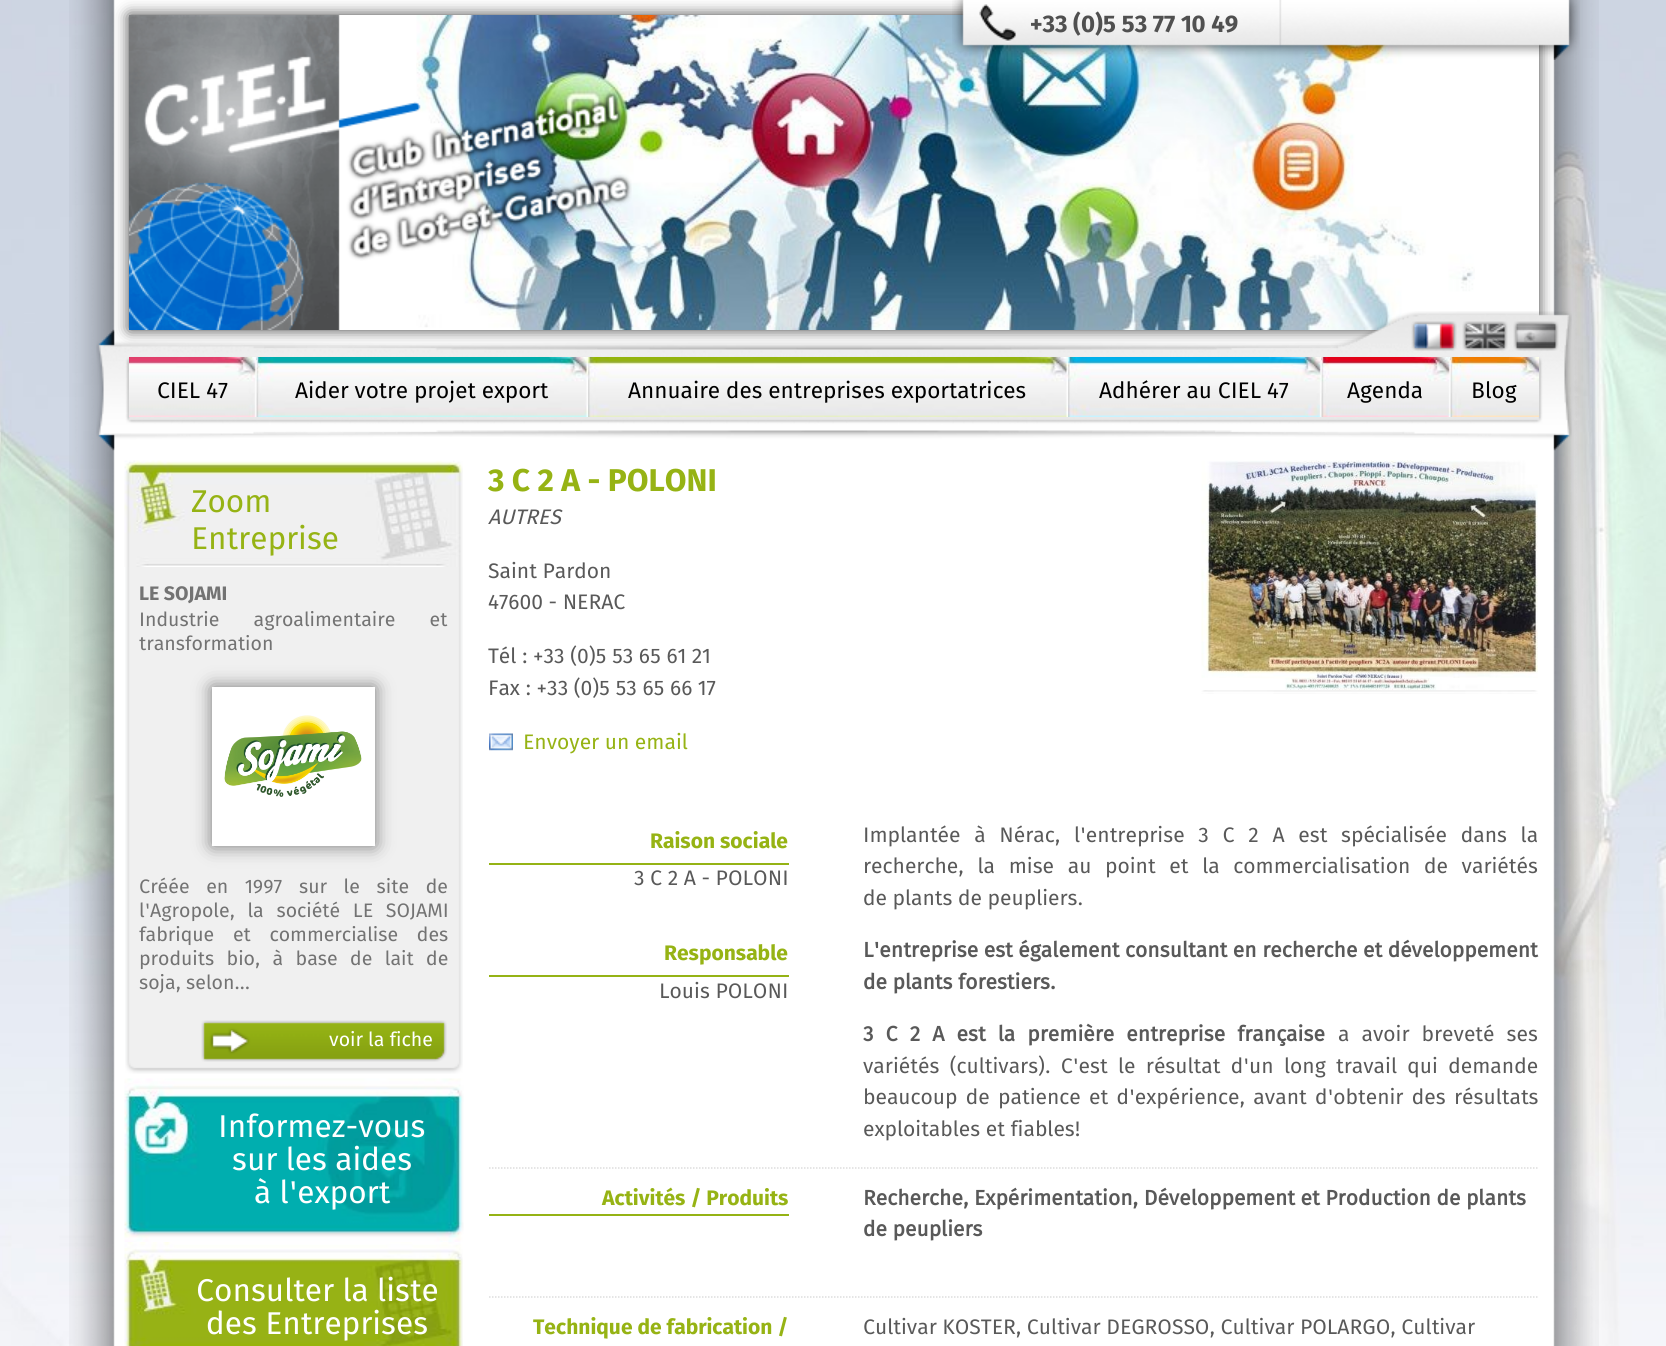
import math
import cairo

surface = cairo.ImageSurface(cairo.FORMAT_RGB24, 1666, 1346)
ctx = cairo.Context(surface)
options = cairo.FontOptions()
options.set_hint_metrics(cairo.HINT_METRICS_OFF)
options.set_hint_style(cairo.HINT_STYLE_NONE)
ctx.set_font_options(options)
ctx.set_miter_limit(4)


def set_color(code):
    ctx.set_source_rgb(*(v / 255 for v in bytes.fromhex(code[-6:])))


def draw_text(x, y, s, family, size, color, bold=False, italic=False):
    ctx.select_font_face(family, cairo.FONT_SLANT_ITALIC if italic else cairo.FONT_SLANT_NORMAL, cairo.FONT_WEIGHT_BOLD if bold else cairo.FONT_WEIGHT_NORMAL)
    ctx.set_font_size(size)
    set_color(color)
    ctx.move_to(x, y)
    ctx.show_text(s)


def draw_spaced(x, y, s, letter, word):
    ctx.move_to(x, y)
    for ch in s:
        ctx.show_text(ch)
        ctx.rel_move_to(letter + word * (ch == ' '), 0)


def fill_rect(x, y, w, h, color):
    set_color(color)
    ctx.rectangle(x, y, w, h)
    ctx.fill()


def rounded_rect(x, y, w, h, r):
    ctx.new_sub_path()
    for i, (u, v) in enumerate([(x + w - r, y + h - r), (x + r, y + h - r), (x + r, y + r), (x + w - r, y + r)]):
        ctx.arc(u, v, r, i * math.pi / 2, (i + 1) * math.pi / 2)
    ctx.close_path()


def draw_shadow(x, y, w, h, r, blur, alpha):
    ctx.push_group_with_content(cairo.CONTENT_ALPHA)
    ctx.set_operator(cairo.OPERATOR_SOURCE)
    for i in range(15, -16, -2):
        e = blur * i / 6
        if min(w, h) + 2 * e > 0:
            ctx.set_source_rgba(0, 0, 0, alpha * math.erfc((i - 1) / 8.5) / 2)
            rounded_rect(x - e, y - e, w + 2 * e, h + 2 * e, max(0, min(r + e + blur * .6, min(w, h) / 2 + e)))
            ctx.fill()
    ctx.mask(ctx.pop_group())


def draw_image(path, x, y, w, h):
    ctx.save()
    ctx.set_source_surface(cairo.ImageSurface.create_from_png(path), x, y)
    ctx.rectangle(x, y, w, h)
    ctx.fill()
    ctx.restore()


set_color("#ffffff")
ctx.paint()
draw_image("assets/img1.png", 0, 0, 1666, 1346)
draw_image("assets/img2.png", 69, 0, 1530, 1346)
ctx.save()
ctx.set_fill_rule(cairo.FILL_RULE_EVEN_ODD)
ctx.new_path()
ctx.move_to(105, 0)
ctx.line_to(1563, 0)
ctx.line_to(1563, 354)
ctx.line_to(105, 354)
ctx.close_path()
ctx.move_to(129, 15)
ctx.line_to(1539, 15)
ctx.line_to(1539, 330)
ctx.line_to(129, 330)
ctx.close_path()
ctx.clip()
set_color("#000000")
draw_shadow(129, 15, 1410, 315, 0, 7.5, 0.75)
ctx.restore()
draw_image("assets/img3.png", 416, 15, 1059, 315)
draw_image("assets/img6.png", 96, 311, 1476, 140)
draw_image("assets/img4.png", 129, 15, 503, 315)
draw_image("assets/img5.png", 952, 0, 628, 60)
draw_text(1030, 32, "+33 (0)5 53 77 10 49", "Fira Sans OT", 24, "#505050", bold=True)
draw_image("assets/img7.png", 1411, 321, 46, 30)
draw_image("assets/img8.png", 1462, 321, 46, 30)
draw_image("assets/img9.png", 1513, 321, 46, 30)
draw_image("assets/img10.png", 129, 357, 128, 60)
draw_text(157, 398, "CIEL 47", "Fira Sans OT", 22.5, "#000000")
draw_image("assets/img11.png", 256, 357, 332, 60)
draw_text(295, 398, "Aider votre projet export", "Fira Sans OT", 22.5, "#000000")
draw_image("assets/img12.png", 588, 357, 480, 60)
draw_text(628, 398, "Annuaire des entreprises exportatrices", "Fira Sans OT", 22.5, "#000000")
draw_image("assets/img13.png", 1068, 357, 254, 60)
draw_text(1099, 398, "Adhérer au CIEL 47", "Fira Sans OT", 22.5, "#000000")
draw_image("assets/img14.png", 1321, 357, 130, 60)
draw_text(1347, 398, "Agenda", "Fira Sans OT", 22.5, "#000000")
draw_image("assets/img15.png", 1450, 357, 89, 60)
draw_text(1471, 398, "Blog", "Fira Sans OT", 22.5, "#000000")
draw_image("assets/img16.png", 124, 460, 339, 107)
draw_text(191, 512, "Zoom", "Fira Sans OT", 31.5, "#96b314")
draw_text(191, 549, "Entreprise", "Fira Sans OT", 31.5, "#96b314")
draw_image("assets/img17.png", 125, 567, 338, 507)
draw_text(139, 600, "LE SOJAMI", "Fira Sans OT", 19.5, "#737373", bold=True)
ctx.select_font_face("Fira Sans OT")
draw_spaced(139, 626, "Industrie agroalimentaire et", 0, 29)
draw_text(139, 650, "transformation", "Fira Sans OT", 19.5, "#737373")
set_color("#000000")
draw_shadow(212, 687, 163, 159, 0, 9, 0.5)
ctx.rectangle(215, 690, 157, 153)
set_color("#ffffff")
ctx.set_line_width(6)
ctx.stroke()
draw_image("assets/img18.png", 218, 693, 151, 147)
set_color("#737373")
draw_spaced(139, 893, "Créée en 1997 sur le site de", 0, 11.5)
draw_spaced(139, 917, "l'Agropole, la société LE SOJAMI", 0, 7.5)
draw_spaced(139, 941, "fabrique et commercialise des", 0, 13.5)
draw_spaced(139, 965, "produits bio, à base de lait de", 0, 7.25)
draw_text(139, 989, "soja, selon…", "Fira Sans OT", 19.5, "#737373")
draw_image("assets/img19.png", 201, 1020, 246, 42)
draw_text(329, 1046, "voir la fiche", "Fira Sans OT", 19.5, "#ffffff")
draw_image("assets/img20.png", 124, 1078, 340, 164)
draw_text(218, 1137, "Informez-vous", "Fira Sans OT", 31.5, "#ffffff")
draw_text(232, 1170, "sur les aides", "Fira Sans OT", 31.5, "#ffffff")
draw_text(254, 1203, "à l'export", "Fira Sans OT", 31.5, "#ffffff")
draw_image("assets/img21.png", 124, 1242, 339, 104)
draw_text(196, 1301, "Consulter la liste", "Fira Sans OT", 31.5, "#ffffff")
draw_text(206, 1334, "des Entreprises", "Fira Sans OT", 31.5, "#ffffff")
draw_text(488, 491, "3 C 2 A - POLONI", "Fira Sans OT", 31.5, "#96b314", bold=True)
draw_text(488, 524, "AUTRES", "Fira Sans OT", 21, "#595959", italic=True)
draw_image("assets/img22.png", 1201, 460, 337, 234)
draw_text(488, 578, "Saint Pardon", "Fira Sans OT", 21, "#595959")
draw_text(488, 609, "47600 - NERAC", "Fira Sans OT", 21, "#595959")
draw_text(488, 663, "Tél : +33 (0)5 53 65 61 21", "Fira Sans OT", 21, "#595959")
draw_text(488, 695, "Fax : +33 (0)5 53 65 66 17", "Fira Sans OT", 21, "#595959")
draw_image("assets/img23.png", 489, 733, 24, 18)
draw_text(523, 749, "Envoyer un email", "Fira Sans OT", 21, "#96b314")
fill_rect(489, 863, 300, 2, "#95b315")
draw_text(650, 848, "Raison sociale", "Fira Sans OT", 21, "#96b314", bold=True)
draw_text(634, 885, "3 C 2 A - POLONI", "Fira Sans OT", 21, "#595959")
fill_rect(489, 975, 300, 2, "#95b315")
draw_text(664, 960, "Responsable", "Fira Sans OT", 21, "#96b314", bold=True)
draw_text(659, 998, "Louis POLONI", "Fira Sans OT", 21, "#595959")
draw_spaced(863, 842, "Implantée à Nérac, l'entreprise 3 C 2 A est spécialisée dans la", 0, 8.1)
draw_spaced(863, 873, "recherche, la mise au point et la commercialisation de variétés", 0, 8.1)
draw_text(863, 905, "de plants de peupliers.", "Fira Sans OT", 21, "#595959")
draw_text(863, 957, "L'entreprise est également consultant en recherche et développement", "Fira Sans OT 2", 21, "#595959", bold=True)
draw_text(863, 989, "de plants forestiers.", "Fira Sans OT 2", 21, "#595959", bold=True)
draw_spaced(863, 1041, "3 C 2 A est la première entreprise française", 0, 6.5)
ctx.select_font_face("Fira Sans OT")
draw_spaced(1338, 1041, "a avoir breveté ses", 0, 6.5)
draw_spaced(863, 1073, "variétés (cultivars). C'est le résultat d'un long travail qui demande", 0, 4.75)
draw_spaced(863, 1104, "beaucoup de patience et d'expérience, avant d'obtenir des résultats", 0, 2.75)
draw_text(863, 1136, "exploitables et fiables!", "Fira Sans OT", 21, "#595959")
ctx.new_path()
ctx.move_to(489, 1168)
ctx.line_to(1539, 1168)
set_color("#dddddd")
ctx.set_line_width(1.5)
ctx.set_dash([1.5, 1.5])
ctx.stroke()
fill_rect(489, 1214, 300, 2, "#95b315")
draw_text(602, 1205, "Activités / Produits", "Fira Sans OT", 21, "#96b314", bold=True)
draw_text(863, 1205, "Recherche, Expérimentation, Développement et Production de plants", "Fira Sans OT 2", 21, "#595959", bold=True)
draw_text(863, 1236, "de peupliers", "Fira Sans OT 2", 21, "#595959", bold=True)
ctx.new_path()
ctx.move_to(489, 1297)
ctx.line_to(1539, 1297)
set_color("#dddddd")
ctx.stroke()
draw_text(533, 1334, "Technique de fabrication /", "Fira Sans OT", 21, "#96b314", bold=True)
draw_text(863, 1334, "Cultivar KOSTER, Cultivar DEGROSSO, Cultivar POLARGO, Cultivar", "Fira Sans OT", 21, "#595959")
surface.write_to_png("output.png")
